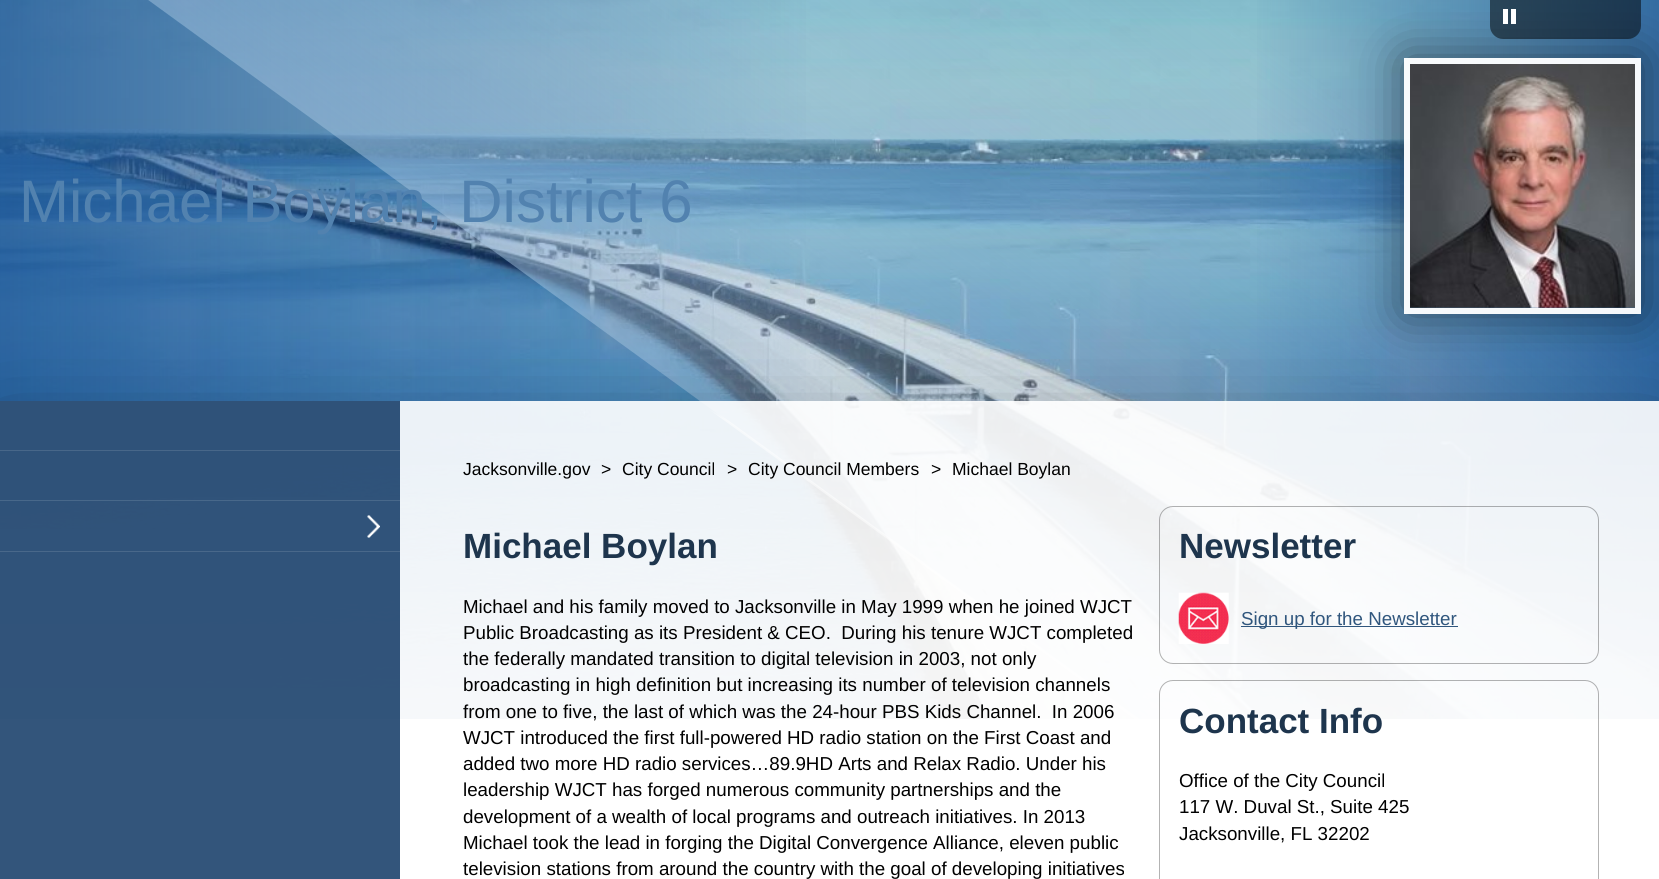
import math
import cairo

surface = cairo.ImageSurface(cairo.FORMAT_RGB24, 1659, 879)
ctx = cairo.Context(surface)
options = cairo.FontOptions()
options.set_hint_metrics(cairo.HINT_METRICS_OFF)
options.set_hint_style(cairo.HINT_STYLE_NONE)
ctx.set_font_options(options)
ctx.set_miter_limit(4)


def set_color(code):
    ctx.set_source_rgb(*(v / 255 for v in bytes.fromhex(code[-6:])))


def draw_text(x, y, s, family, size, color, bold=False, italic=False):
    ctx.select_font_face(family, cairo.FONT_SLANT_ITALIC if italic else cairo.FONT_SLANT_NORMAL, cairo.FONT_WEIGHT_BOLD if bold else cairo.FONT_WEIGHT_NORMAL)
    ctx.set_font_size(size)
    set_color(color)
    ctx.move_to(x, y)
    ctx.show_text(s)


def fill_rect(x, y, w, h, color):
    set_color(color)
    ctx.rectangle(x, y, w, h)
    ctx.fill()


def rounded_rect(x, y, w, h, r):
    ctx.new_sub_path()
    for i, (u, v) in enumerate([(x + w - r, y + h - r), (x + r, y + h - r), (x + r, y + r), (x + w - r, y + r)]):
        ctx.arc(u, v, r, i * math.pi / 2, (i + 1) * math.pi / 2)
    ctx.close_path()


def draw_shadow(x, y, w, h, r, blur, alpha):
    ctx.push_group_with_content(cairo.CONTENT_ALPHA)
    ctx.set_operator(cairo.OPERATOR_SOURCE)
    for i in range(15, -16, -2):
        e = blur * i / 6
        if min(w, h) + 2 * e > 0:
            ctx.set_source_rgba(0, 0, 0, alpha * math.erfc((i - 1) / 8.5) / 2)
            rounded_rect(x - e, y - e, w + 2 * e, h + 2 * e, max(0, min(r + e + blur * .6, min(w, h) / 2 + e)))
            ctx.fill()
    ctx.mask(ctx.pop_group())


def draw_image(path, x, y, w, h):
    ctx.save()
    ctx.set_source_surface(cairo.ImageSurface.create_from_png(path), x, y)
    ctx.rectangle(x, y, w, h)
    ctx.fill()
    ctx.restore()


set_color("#ffffff")
ctx.paint()
draw_image("assets/img1.png", 0, 0, 1659, 719)
draw_image("assets/img2.png", 267, 155, 981, 555)
gradient = cairo.LinearGradient(0, 514, 830, 514)
gradient.add_color_stop_rgba(0, 0.098, 0.325, 0.584, 0.76)
gradient.add_color_stop_rgba(1, 0.098, 0.325, 0.584, 0)
ctx.set_source(gradient)
ctx.rectangle(0, 0, 806, 719)
ctx.fill()
gradient = cairo.LinearGradient(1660, 514, 1245, 514)
gradient.add_color_stop_rgba(0, 0.098, 0.325, 0.584, 0.76)
gradient.add_color_stop_rgba(1, 0.098, 0.325, 0.584, 0)
ctx.set_source(gradient)
ctx.rectangle(1257, 0, 402, 719)
ctx.fill()
ctx.save()
ctx.rectangle(0, 0, 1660, 719)
ctx.clip()
gradient = cairo.LinearGradient(704, 404, 1071, -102)
gradient.add_color_stop_rgba(0, 0.647, 0.769, 0.878, 0.5)
gradient.add_color_stop_rgba(1, 0.647, 0.769, 0.878, 0)
ctx.set_source(gradient)
ctx.new_path()
ctx.move_to(262, -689)
ctx.line_to(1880, 486)
ctx.line_to(1513, 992)
ctx.line_to(-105, -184)
ctx.close_path()
ctx.fill()
ctx.restore()
ctx.save()
ctx.set_fill_rule(cairo.FILL_RULE_EVEN_ODD)
ctx.new_path()
ctx.move_to(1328, 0)
ctx.line_to(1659, 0)
ctx.line_to(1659, 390)
ctx.line_to(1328, 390)
ctx.close_path()
ctx.move_to(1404, 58)
ctx.line_to(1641, 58)
ctx.line_to(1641, 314)
ctx.line_to(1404, 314)
ctx.close_path()
ctx.clip()
set_color("#000000")
draw_shadow(1404, 58, 237, 256, 0, 25, 0.5)
ctx.restore()
ctx.set_source_rgba(0, 0, 0, 0.5)
ctx.new_path()
ctx.move_to(1490, -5)
ctx.line_to(1641, -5)
ctx.line_to(1641, 26)
ctx.curve_to(1641, 33, 1635, 39, 1628, 39)
ctx.line_to(1503, 39)
ctx.curve_to(1496, 39, 1490, 33, 1490, 26)
ctx.close_path()
ctx.fill()
fill_rect(1503, 9, 5, 15, "#ffffff")
fill_rect(1511, 9, 5, 15, "#ffffff")
ctx.save()
ctx.rectangle(0, 0, 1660, 719)
ctx.clip()
gradient = cairo.LinearGradient(718, 416, 719, 414)
gradient.add_color_stop_rgba(0, 1, 1, 1, 0.5)
gradient.add_color_stop_rgba(1, 1, 1, 1, 0)
ctx.set_source(gradient)
ctx.new_path()
ctx.move_to(-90, -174)
ctx.line_to(1529, 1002)
ctx.line_to(1527, 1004)
ctx.line_to(-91, -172)
ctx.close_path()
ctx.fill()
ctx.restore()
gradient = cairo.LinearGradient(830, -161, 830, 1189)
gradient.add_color_stop_rgba(0, 1, 1, 1, 0)
gradient.add_color_stop_rgba(0.46, 1, 1, 1, 0)
gradient.add_color_stop_rgba(1, 1, 1, 1, 1)
gradient.add_color_stop_rgba(1, 1, 1, 1, 1)
ctx.set_source(gradient)
ctx.rectangle(0, 476, 1659, 243)
ctx.fill()
draw_text(19, 222, "Michael Boylan, District 6", "Liberation Sans", 60, "#5282af")
ctx.rectangle(1407, 61, 231, 250)
ctx.set_source_rgba(1, 1, 1, 0.95)
ctx.set_line_width(6)
ctx.stroke()
draw_image("assets/img3.png", 1410, 64, 225, 244)
ctx.save()
ctx.set_fill_rule(cairo.FILL_RULE_EVEN_ODD)
ctx.new_path()
ctx.move_to(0, 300)
ctx.line_to(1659, 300)
ctx.line_to(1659, 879)
ctx.line_to(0, 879)
ctx.close_path()
ctx.move_to(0, 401)
ctx.line_to(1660, 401)
ctx.line_to(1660, 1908)
ctx.line_to(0, 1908)
ctx.close_path()
ctx.clip()
set_color("#000000")
draw_shadow(0, 451, 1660, 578, 0, 50, 0.5)
ctx.restore()
gradient = cairo.LinearGradient(830, 401, 830, 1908)
gradient.add_color_stop_rgba(0, 1, 1, 1, 0.9)
gradient.add_color_stop_rgba(0.54, 1, 1, 1, 1)
gradient.add_color_stop_rgba(1, 1, 1, 1, 1)
ctx.set_source(gradient)
ctx.rectangle(0, 401, 1659, 318)
ctx.fill()
ctx.set_source_rgba(0, 0.169, 0.353, 0.8)
ctx.rectangle(0, 401, 400, 478)
ctx.fill()
fill_rect(0, 450, 400, 1, "#486789")
fill_rect(0, 500, 400, 1, "#48688a")
fill_rect(0, 551, 400, 1, "#49688a")
draw_image("assets/img4.png", 367, 515, 13, 23)
draw_text(463, 475, "Jacksonville.gov", "Liberation Sans", 17.5, "#000000")
draw_text(601, 475, ">", "Liberation Sans", 17.5, "#000000")
draw_text(622, 475, "City Council", "Liberation Sans", 17.5, "#000000")
draw_text(727, 475, ">", "Liberation Sans", 17.5, "#000000")
draw_text(748, 475, "City Council Members", "Liberation Sans", 17.5, "#000000")
draw_text(931, 475, ">", "Liberation Sans", 17.5, "#000000")
draw_text(952, 475, "Michael Boylan", "Liberation Sans", 17.5, "#000000")
draw_text(463, 558, "Michael Boylan", "Liberation Sans", 35, "#1e354d", bold=True)
draw_text(463, 613, "Michael and his family moved to Jacksonville in May 1999 when he joined WJCT", "Liberation Sans", 18.75, "#000000")
draw_text(463, 639, "Public Broadcasting as its President & CEO.  During his tenure WJCT completed", "Liberation Sans", 18.75, "#000000")
draw_text(463, 665, "the federally mandated transition to digital television in 2003, not only", "Liberation Sans", 18.75, "#000000")
draw_text(463, 691, "broadcasting in high definition but increasing its number of television channels", "Liberation Sans", 18.75, "#000000")
draw_text(463, 718, "from one to five, the last of which was the 24-hour PBS Kids Channel.  In 2006", "Liberation Sans", 18.75, "#000000")
draw_text(463, 744, "WJCT introduced the first full-powered HD radio station on the First Coast and", "Liberation Sans", 18.75, "#000000")
draw_text(463, 770, "added two more HD radio services…89.9HD Arts and Relax Radio. Under his", "Liberation Sans", 18.75, "#000000")
draw_text(463, 796, "leadership WJCT has forged numerous community partnerships and the", "Liberation Sans", 18.75, "#000000")
draw_text(463, 823, "development of a wealth of local programs and outreach initiatives. In 2013", "Liberation Sans", 18.75, "#000000")
draw_text(463, 849, "Michael took the lead in forging the Digital Convergence Alliance, eleven public", "Liberation Sans", 18.75, "#000000")
draw_text(463, 875, "television stations from around the country with the goal of developing initiatives", "Liberation Sans", 18.75, "#000000")
rounded_rect(1159.5, 506.5, 439, 157, 13.5)
ctx.set_source_rgba(0, 0, 0, 0.3)
ctx.set_line_width(1)
ctx.stroke()
draw_text(1179, 558, "Newsletter", "Liberation Sans", 35, "#1e354d", bold=True)
draw_image("assets/img5.png", 1178, 592, 51, 52)
fill_rect(1241, 626, 217, 1, "#30567d")
draw_text(1241, 625, "Sign up for the Newsletter", "Liberation Sans", 18.75, "#30567d")
rounded_rect(1159.5, 680.5, 439, 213, 13.5)
ctx.set_source_rgba(0, 0, 0, 0.3)
ctx.stroke()
draw_text(1179, 733, "Contact Info", "Liberation Sans", 35, "#1e354d", bold=True)
draw_text(1179, 787, "Office of the City Council", "Liberation Sans", 18.75, "#000000")
draw_text(1179, 813, "117 W. Duval St., Suite 425", "Liberation Sans", 18.75, "#000000")
draw_text(1179, 840, "Jacksonville, FL 32202", "Liberation Sans", 18.75, "#000000")
surface.write_to_png("output.png")
